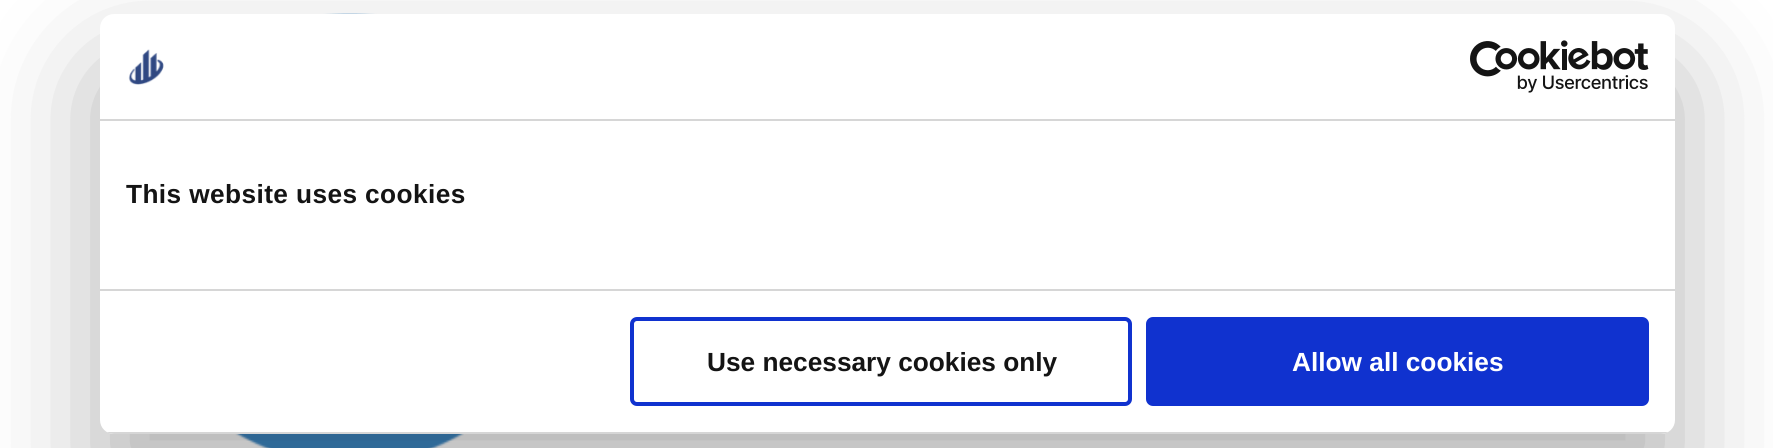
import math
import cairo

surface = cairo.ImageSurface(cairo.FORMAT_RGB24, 1773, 448)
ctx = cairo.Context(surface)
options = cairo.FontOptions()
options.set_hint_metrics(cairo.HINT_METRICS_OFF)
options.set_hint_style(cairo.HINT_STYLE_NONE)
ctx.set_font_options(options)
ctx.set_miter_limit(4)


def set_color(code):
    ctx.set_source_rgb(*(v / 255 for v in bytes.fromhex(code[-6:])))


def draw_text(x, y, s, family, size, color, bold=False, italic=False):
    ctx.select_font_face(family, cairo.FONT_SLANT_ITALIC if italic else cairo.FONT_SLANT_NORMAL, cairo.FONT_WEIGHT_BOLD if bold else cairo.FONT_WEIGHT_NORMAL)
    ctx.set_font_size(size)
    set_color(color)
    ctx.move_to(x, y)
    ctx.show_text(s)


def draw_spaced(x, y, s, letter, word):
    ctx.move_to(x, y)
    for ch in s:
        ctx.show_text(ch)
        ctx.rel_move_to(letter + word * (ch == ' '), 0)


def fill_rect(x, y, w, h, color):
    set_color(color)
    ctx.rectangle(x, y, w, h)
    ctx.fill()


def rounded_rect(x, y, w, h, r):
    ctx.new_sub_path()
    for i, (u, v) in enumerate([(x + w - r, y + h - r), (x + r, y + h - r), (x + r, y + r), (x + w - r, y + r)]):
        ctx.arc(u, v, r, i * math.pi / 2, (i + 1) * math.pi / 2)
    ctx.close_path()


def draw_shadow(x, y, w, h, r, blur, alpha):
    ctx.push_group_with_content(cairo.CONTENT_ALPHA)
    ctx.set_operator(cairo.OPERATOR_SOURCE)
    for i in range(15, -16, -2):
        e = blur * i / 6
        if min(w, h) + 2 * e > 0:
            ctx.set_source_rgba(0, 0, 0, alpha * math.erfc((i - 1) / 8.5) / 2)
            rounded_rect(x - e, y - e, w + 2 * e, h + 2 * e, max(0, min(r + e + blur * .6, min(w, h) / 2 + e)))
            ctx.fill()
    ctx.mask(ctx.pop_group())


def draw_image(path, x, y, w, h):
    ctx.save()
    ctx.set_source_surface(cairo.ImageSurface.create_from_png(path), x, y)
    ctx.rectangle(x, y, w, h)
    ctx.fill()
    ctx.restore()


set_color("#ffffff")
ctx.paint()
draw_image("assets/img1.png", 235, 13, 229, 435)
set_color("#000000")
draw_shadow(100, 70, 1575, 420, 14, 59.5, 0.3)
set_color("#ffffff")
rounded_rect(100, 14, 1575, 420, 14)
ctx.fill()
fill_rect(100, 119, 1575, 2, "#d6d6d6")
draw_image("assets/img2.png", 128, 49, 36, 36)
draw_image("assets/img3.png", 1470, 40, 179, 53)
fill_rect(100, 289, 1575, 2, "#d6d6d6")
ctx.select_font_face("Liberation Sans", cairo.FONT_SLANT_NORMAL, cairo.FONT_WEIGHT_BOLD)
ctx.set_font_size(26.25)
set_color("#141414")
draw_spaced(126, 203, "This website uses cookies", 0.4, 0)
ctx.save()
rounded_rect(100, 14, 1575, 420, 14)
ctx.clip()
fill_rect(100, 432, 1575, 2, "#d6d6d6")
ctx.restore()
rounded_rect(632, 319, 498, 85, 5)
set_color("#1032cf")
ctx.set_line_width(4)
ctx.stroke()
draw_text(707, 371, "Use necessary cookies only", "Liberation Sans", 26.25, "#141414", bold=True)
set_color("#1032cf")
rounded_rect(1148, 319, 499, 85, 5)
ctx.fill_preserve()
ctx.stroke()
draw_text(1292, 371, "Allow all cookies", "Liberation Sans", 26.25, "#ffffff", bold=True)
surface.write_to_png("output.png")
